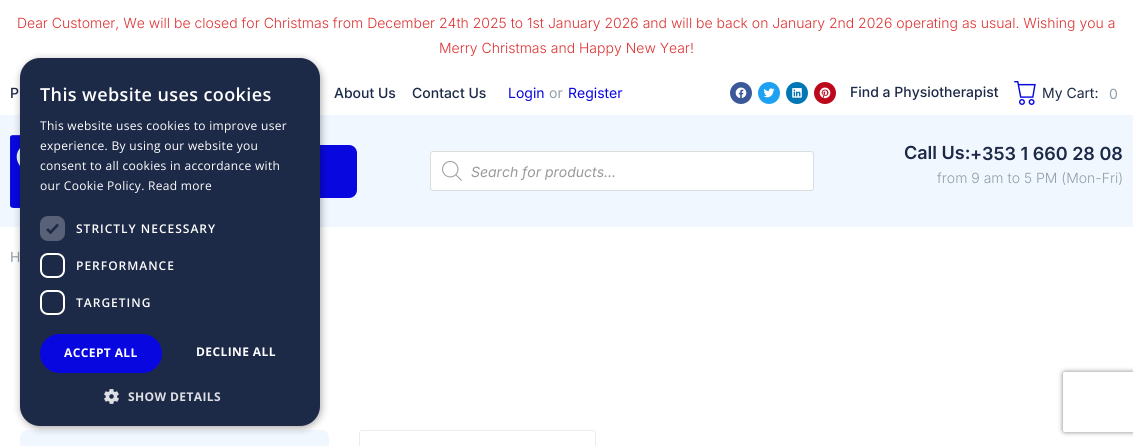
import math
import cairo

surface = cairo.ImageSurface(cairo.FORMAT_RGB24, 1133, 446)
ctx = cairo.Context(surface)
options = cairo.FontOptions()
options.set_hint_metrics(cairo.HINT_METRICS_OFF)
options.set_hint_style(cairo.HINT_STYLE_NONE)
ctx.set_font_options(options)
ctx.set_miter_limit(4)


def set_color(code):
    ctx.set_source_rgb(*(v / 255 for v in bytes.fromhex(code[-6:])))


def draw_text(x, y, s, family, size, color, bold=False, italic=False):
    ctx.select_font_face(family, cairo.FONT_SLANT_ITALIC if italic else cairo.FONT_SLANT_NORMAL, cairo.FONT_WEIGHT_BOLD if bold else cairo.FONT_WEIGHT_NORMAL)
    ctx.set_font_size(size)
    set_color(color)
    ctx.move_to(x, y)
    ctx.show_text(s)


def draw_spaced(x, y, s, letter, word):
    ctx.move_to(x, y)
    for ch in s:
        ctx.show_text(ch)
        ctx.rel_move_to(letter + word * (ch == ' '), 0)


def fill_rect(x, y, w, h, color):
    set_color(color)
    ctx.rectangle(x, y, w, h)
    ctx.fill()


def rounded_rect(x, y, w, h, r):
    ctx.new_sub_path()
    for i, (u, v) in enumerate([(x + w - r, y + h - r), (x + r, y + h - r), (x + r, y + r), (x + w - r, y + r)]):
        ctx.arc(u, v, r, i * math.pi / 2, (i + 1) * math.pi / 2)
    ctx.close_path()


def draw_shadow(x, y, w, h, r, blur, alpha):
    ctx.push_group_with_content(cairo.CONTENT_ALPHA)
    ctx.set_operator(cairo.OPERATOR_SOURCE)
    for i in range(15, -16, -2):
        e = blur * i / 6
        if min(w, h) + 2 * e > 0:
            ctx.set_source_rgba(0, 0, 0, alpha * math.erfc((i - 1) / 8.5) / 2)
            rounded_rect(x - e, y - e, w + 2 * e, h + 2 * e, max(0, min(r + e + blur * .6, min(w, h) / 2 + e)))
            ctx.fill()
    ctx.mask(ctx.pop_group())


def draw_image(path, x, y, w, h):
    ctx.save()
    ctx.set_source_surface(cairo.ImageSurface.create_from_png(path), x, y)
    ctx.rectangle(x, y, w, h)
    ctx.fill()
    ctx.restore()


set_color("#ffffff")
ctx.paint()
draw_text(17, 28, "Dear Customer, We will be closed for Christmas from December 24th 2025 to 1st January 2026 and will be back on January 2nd 2026 operating as usual. Wishing you a", "Inter Light", 14, "#dd3333")
draw_text(439, 53, "Merry Christmas and Happy New Year!", "Inter Light", 14, "#dd3333")
draw_text(10, 98, "P", "Inter Medium", 14, "#1d2a47")
draw_text(334, 98, "About Us", "Inter Medium", 14, "#1d2a47")
draw_text(412, 98, "Contact Us", "Inter Medium", 14, "#1d2a47")
draw_text(508, 98, "Login", "Inter", 14, "#0807e0")
draw_text(549, 98, "or", "Inter", 14, "#919ea8")
draw_text(568, 98, "Register", "Inter", 14, "#0807e0")
set_color("#3b5998")
ctx.new_path()
ctx.arc(741, 93, 11, 0, 2 * math.pi)
ctx.fill()
draw_image("assets/img1.png", 735, 87, 12, 11)
set_color("#1da1f2")
ctx.arc(769, 93, 11, 0, 2 * math.pi)
ctx.fill()
draw_image("assets/img2.png", 763, 88, 12, 10)
set_color("#0077b5")
ctx.arc(797, 93, 11, 0, 2 * math.pi)
ctx.fill()
draw_image("assets/img3.png", 792, 88, 10, 10)
set_color("#bd081c")
ctx.arc(825, 93, 11, 0, 2 * math.pi)
ctx.fill()
draw_image("assets/img4.png", 819, 87, 12, 12)
draw_text(850, 97, "Find a Physiotherapist", "Inter Medium", 14, "#1d2a47")
draw_image("assets/img5.png", 1014, 81, 22, 24)
draw_text(1042, 98, "My Cart:", "Inter", 14, "#1d2a47")
draw_text(1109, 99, "0", "Inter", 14, "#919ea8")
fill_rect(0, 115, 1133, 112, "#f0f7ff")
draw_image("assets/img6.png", 10, 135, 10, 73)
set_color("#0807e0")
rounded_rect(161, 145, 196, 53, 8)
ctx.fill()
set_color("#ffffff")
rounded_rect(430.5, 151.5, 383, 39, 2.5)
ctx.fill_preserve()
set_color("#dddddd")
ctx.set_line_width(1)
ctx.stroke()
draw_image("assets/img7.png", 442, 161, 20, 20)
draw_text(471, 177, "Search for products...", "Inter", 14, "#999999", italic=True)
draw_text(904, 159, "Call Us:", "Inter SemiBold", 18, "#1d2a47")
draw_text(970, 160, "+353 1 660 28 08", "Inter SemiBold", 18, "#1d2a47")
draw_text(937, 183, "from 9 am to 5 PM (Mon-Fri)", "Inter Light", 14, "#919ea8")
draw_text(10, 262, "H", "Inter", 14, "#919ea8")
set_color("#f0f7ff")
rounded_rect(20, 430, 309, 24, 8)
ctx.fill()
rounded_rect(359.5, 430.5, 236, 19, 2.5)
set_color("#ebeced")
ctx.stroke()
ctx.new_path()
ctx.move_to(582.5, 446.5)
ctx.line_to(586.5, 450.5)
ctx.line_to(590.5, 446.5)
set_color("#1d2a47")
ctx.set_line_width(2)
ctx.stroke()
set_color("#000000")
draw_shadow(21, 60, 300, 368, 20, 4, 0.35)
set_color("#1d2a47")
rounded_rect(20, 58, 300, 368, 20)
ctx.fill()
ctx.select_font_face("Open Sans SemiBold")
ctx.set_font_size(18)
set_color("#ffffff")
draw_spaced(40, 101, "This website uses cookies", 0.4, 0)
ctx.select_font_face("Open Sans")
ctx.set_font_size(12)
draw_spaced(40, 130, "This website uses cookies to improve user", 0.3, 0)
draw_spaced(40, 150, "experience. By using our website you", 0.3, 0)
draw_spaced(40, 170, "consent to all cookies in accordance with", 0.3, 0)
draw_spaced(40, 190, "our Cookie Policy. Read more", 0.3, 0)
set_color("#586177")
rounded_rect(40, 216, 25, 25, 8)
ctx.fill()
ctx.new_path()
ctx.move_to(47, 229)
ctx.line_to(50.5, 232.5)
ctx.line_to(58, 224.5)
set_color("#1d2a47")
ctx.set_line_width(2.6)
ctx.stroke()
ctx.select_font_face("Open Sans SemiBold")
set_color("#ffffff")
draw_spaced(76, 233, "STRICTLY NECESSARY", 1, 0)
rounded_rect(41, 254, 23, 23, 7)
ctx.set_line_width(2)
ctx.stroke()
draw_spaced(76, 270, "PERFORMANCE", 1, 0)
rounded_rect(41, 291, 23, 23, 7)
ctx.stroke()
draw_spaced(76, 307, "TARGETING", 1, 0)
set_color("#0807e0")
rounded_rect(40, 334, 122, 39, 19.5)
ctx.fill()
ctx.select_font_face("Open Sans", cairo.FONT_SLANT_NORMAL, cairo.FONT_WEIGHT_BOLD)
set_color("#ffffff")
draw_spaced(64, 357, "ACCEPT ALL", 0.4, 0)
draw_spaced(196, 356, "DECLINE ALL", 0.4, 0)
draw_image("assets/img8.png", 104, 389, 15, 15)
set_color("#dddfe3")
draw_spaced(128, 401, "SHOW DETAILS", 0.4, 0)
ctx.save()
ctx.set_fill_rule(cairo.FILL_RULE_EVEN_ODD)
ctx.new_path()
ctx.move_to(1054, 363)
ctx.line_to(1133, 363)
ctx.line_to(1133, 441)
ctx.line_to(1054, 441)
ctx.close_path()
ctx.move_to(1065, 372)
ctx.line_to(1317, 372)
ctx.curve_to(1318, 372, 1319, 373, 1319, 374)
ctx.line_to(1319, 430)
ctx.curve_to(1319, 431, 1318, 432, 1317, 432)
ctx.line_to(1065, 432)
ctx.curve_to(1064, 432, 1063, 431, 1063, 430)
ctx.line_to(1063, 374)
ctx.curve_to(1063, 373, 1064, 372, 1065, 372)
ctx.close_path()
ctx.clip()
set_color("#808080")
draw_shadow(1063, 372, 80, 60, 2, 2.5, 1)
ctx.restore()
surface.write_to_png("output.png")
